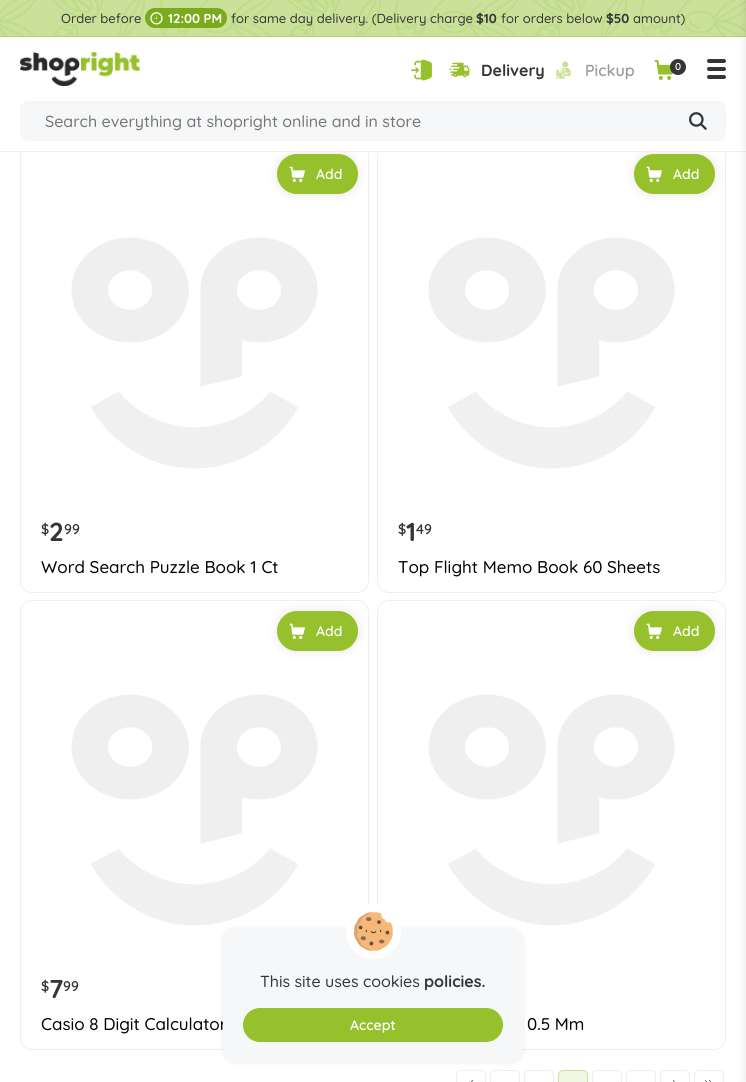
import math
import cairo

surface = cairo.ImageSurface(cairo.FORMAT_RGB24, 746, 1082)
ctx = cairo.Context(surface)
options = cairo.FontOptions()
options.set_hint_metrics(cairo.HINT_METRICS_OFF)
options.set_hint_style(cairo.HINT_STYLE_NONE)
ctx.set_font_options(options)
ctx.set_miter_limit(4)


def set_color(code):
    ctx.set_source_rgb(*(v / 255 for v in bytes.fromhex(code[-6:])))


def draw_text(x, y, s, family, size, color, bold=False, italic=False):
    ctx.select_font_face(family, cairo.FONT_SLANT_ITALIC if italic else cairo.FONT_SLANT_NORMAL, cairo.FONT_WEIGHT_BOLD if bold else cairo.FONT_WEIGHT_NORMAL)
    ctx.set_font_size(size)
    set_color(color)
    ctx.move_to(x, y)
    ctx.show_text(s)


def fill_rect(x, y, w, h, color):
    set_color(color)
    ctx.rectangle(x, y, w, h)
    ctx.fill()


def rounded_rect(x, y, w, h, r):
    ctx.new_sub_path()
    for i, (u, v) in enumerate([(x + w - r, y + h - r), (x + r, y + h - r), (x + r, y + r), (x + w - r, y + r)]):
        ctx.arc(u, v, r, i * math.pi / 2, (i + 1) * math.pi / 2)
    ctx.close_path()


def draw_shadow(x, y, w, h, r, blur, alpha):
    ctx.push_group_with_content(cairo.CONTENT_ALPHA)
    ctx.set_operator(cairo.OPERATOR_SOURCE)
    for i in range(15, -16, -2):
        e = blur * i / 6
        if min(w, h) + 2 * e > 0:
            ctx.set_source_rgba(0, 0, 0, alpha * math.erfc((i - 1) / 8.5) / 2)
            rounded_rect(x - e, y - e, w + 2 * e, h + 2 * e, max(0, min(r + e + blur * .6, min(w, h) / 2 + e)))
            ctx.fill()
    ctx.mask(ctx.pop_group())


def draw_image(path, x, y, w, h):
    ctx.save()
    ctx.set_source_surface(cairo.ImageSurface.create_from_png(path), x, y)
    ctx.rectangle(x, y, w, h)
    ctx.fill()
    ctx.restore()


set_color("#ffffff")
ctx.paint()
rounded_rect(20.5, 143.5, 348, 449, 11.5)
set_color("#eeeeee")
ctx.set_line_width(1)
ctx.stroke()
set_color("#000000")
draw_shadow(277, 154, 81, 40, 20, 5, 0.1)
rounded_rect(377.5, 143.5, 348, 449, 11.5)
set_color("#eeeeee")
ctx.stroke()
set_color("#000000")
draw_shadow(634, 154, 81, 40, 20, 5, 0.1)
fill_rect(21, 143, 704, 8, "#ffffff")
fill_rect(0, 151, 746, 1, "#eeeeee")
fill_rect(0, 0, 746, 36, "#cbe096")
draw_image("assets/img1.png", 0, 0, 746, 36)
fill_rect(0, 36, 746, 1, "#b6d46c")
draw_text(61, 23, "Order before", "Quicksand Medium", 13, "#343538")
set_color("#79ab1c")
rounded_rect(145, 8, 82, 20, 10)
ctx.fill()
draw_image("assets/img2.png", 150, 12, 13, 13)
draw_text(168, 23, "12:00 PM", "Quicksand", 13, "#ffffff", bold=True)
draw_text(231, 23, "for same day delivery. (Delivery charge", "Quicksand Medium", 13, "#343538")
draw_text(476, 23, "$10", "Quicksand", 13, "#343538", bold=True)
draw_text(501, 23, "for orders below", "Quicksand Medium", 13, "#343538")
draw_text(606, 23, "$50", "Quicksand", 13, "#343538", bold=True)
draw_text(633, 23, "amount)", "Quicksand Medium", 13, "#343538")
draw_image("assets/img3.png", 20, 52, 120, 34)
rounded_rect(707, 59, 19, 4, 2)
ctx.fill()
rounded_rect(707, 67, 19, 4, 2)
ctx.fill()
rounded_rect(707, 75, 19, 4, 2)
ctx.fill()
draw_image("assets/img4.png", 411, 59, 21, 22)
draw_image("assets/img5.png", 449, 62, 21, 16)
draw_text(481, 76, "Delivery", "Quicksand", 16, "#343538", bold=True)
draw_image("assets/img6.png", 556, 61, 15, 18)
draw_text(585, 76, "Pickup", "Quicksand SemiBold", 16, "#9a9a9c")
draw_image("assets/img7.png", 654, 60, 19, 20)
set_color("#343538")
ctx.arc(678, 67, 8, 0, 2 * math.pi)
ctx.fill()
draw_text(675, 70, "0", "Quicksand SemiBold", 10, "#ffffff")
set_color("#000000")
draw_shadow(746, 0, 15, 1082, 0, 5, 0.1)
set_color("#f6f7f8")
rounded_rect(20, 101, 706, 40, 8)
ctx.fill()
draw_text(45, 127, "Search everything at shopright online and in store", "Quicksand Medium", 16, "#757575")
draw_image("assets/img8.png", 689, 112, 18, 18)
set_color("#96c12d")
rounded_rect(277, 154, 81, 40, 20)
ctx.fill()
draw_image("assets/img9.png", 289, 166, 16, 16)
draw_text(316, 179, "Add", "Quicksand SemiBold", 14, "#ffffff")
draw_text(41, 534, "$", "Quicksand SemiBold", 14, "#343538")
draw_text(49, 541, "2", "Quicksand", 26, "#343538", bold=True)
draw_text(64, 534, "99", "Quicksand SemiBold", 14, "#343538")
draw_text(41, 573, "Word Search Puzzle Book 1 Ct", "Quicksand Medium", 17, "#000000")
draw_image("assets/img10.png", 71, 237, 247, 232)
set_color("#96c12d")
rounded_rect(634, 154, 81, 40, 20)
ctx.fill()
draw_image("assets/img9.png", 646, 166, 16, 16)
draw_text(673, 179, "Add", "Quicksand SemiBold", 14, "#ffffff")
draw_text(398, 534, "$", "Quicksand SemiBold", 14, "#343538")
draw_text(406, 541, "1", "Quicksand", 26, "#343538", bold=True)
draw_text(416, 534, "49", "Quicksand SemiBold", 14, "#343538")
draw_text(398, 573, "Top Flight Memo Book 60 Sheets", "Quicksand Medium", 17, "#000000")
draw_image("assets/img10.png", 428, 237, 247, 232)
rounded_rect(20.5, 600.5, 348, 449, 11.5)
set_color("#eeeeee")
ctx.stroke()
set_color("#000000")
draw_shadow(277, 611, 81, 40, 20, 5, 0.1)
set_color("#96c12d")
rounded_rect(277, 611, 81, 40, 20)
ctx.fill()
draw_image("assets/img9.png", 289, 623, 16, 16)
draw_text(316, 636, "Add", "Quicksand SemiBold", 14, "#ffffff")
draw_text(41, 991, "$", "Quicksand SemiBold", 14, "#343538")
draw_text(49, 998, "7", "Quicksand", 26, "#343538", bold=True)
draw_text(63, 991, "99", "Quicksand SemiBold", 14, "#343538")
draw_text(41, 1030, "Casio 8 Digit Calculator", "Quicksand Medium", 17, "#000000")
draw_image("assets/img11.png", 71, 694, 247, 232)
rounded_rect(377.5, 600.5, 348, 449, 11.5)
set_color("#eeeeee")
ctx.stroke()
set_color("#000000")
draw_shadow(634, 611, 81, 40, 20, 5, 0.1)
set_color("#96c12d")
rounded_rect(634, 611, 81, 40, 20)
ctx.fill()
draw_image("assets/img9.png", 646, 623, 16, 16)
draw_text(673, 636, "Add", "Quicksand SemiBold", 14, "#ffffff")
draw_text(527, 1030, "0.5 Mm", "Quicksand Medium", 17, "#000000")
draw_image("assets/img11.png", 428, 694, 247, 232)
draw_image("assets/img12.png", 471, 1080, 2, 2)
rounded_rect(456.5, 1070.5, 29, 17, 4.5)
set_color("#eeeeee")
ctx.stroke()
rounded_rect(490.5, 1070.5, 29, 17, 4.5)
ctx.stroke()
rounded_rect(524.5, 1070.5, 29, 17, 4.5)
ctx.stroke()
set_color("#f2f8e6")
rounded_rect(558.5, 1070.5, 29, 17, 4.5)
ctx.fill_preserve()
set_color("#cbe096")
ctx.stroke()
rounded_rect(592.5, 1070.5, 29, 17, 4.5)
set_color("#eeeeee")
ctx.stroke()
rounded_rect(626.5, 1070.5, 29, 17, 4.5)
ctx.stroke()
draw_image("assets/img13.png", 673, 1080, 2, 2)
rounded_rect(660.5, 1070.5, 29, 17, 4.5)
ctx.stroke()
draw_image("assets/img14.png", 705, 1080, 6, 2)
rounded_rect(694.5, 1070.5, 29, 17, 4.5)
ctx.stroke()
set_color("#000000")
draw_shadow(223, 929, 300, 133, 13, 2.5, 0.1)
set_color("#f6f7f8")
rounded_rect(223, 929, 300, 133, 13)
ctx.fill()
set_color("#ffffff")
ctx.arc(373.5, 931.5, 27.5, 0, 2 * math.pi)
ctx.fill()
draw_image("assets/img15.png", 354, 912, 39, 39)
draw_text(260, 987, "This site uses cookies", "Quicksand Medium", 16, "#343538")
draw_text(424, 987, "policies.", "Quicksand", 16, "#343538", bold=True)
set_color("#96c12d")
rounded_rect(243, 1008, 260, 34, 17)
ctx.fill()
draw_text(350, 1030, "Accept", "Quicksand SemiBold", 14, "#ffffff")
surface.write_to_png("output.png")
